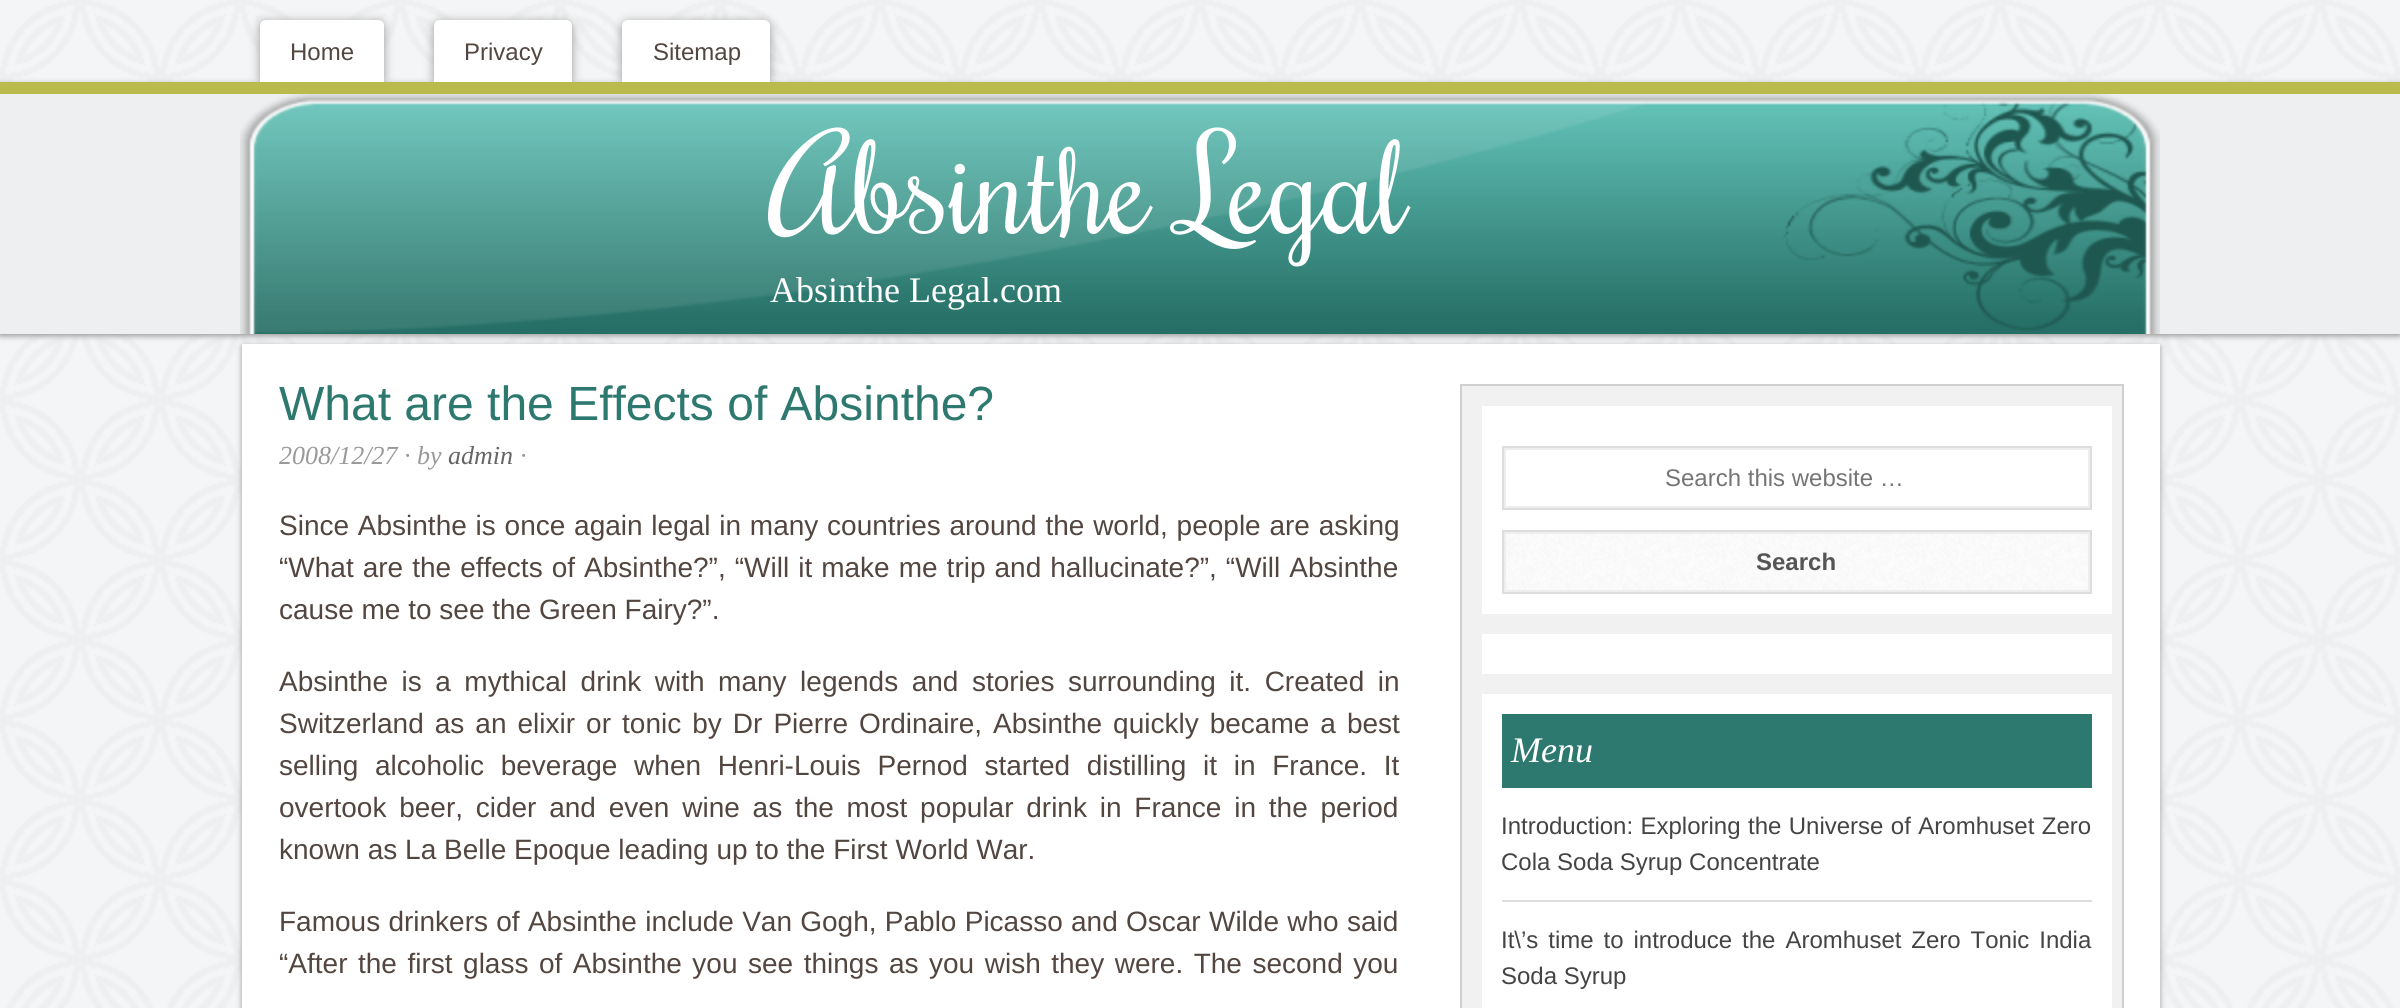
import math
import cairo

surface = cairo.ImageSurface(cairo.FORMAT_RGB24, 2400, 1008)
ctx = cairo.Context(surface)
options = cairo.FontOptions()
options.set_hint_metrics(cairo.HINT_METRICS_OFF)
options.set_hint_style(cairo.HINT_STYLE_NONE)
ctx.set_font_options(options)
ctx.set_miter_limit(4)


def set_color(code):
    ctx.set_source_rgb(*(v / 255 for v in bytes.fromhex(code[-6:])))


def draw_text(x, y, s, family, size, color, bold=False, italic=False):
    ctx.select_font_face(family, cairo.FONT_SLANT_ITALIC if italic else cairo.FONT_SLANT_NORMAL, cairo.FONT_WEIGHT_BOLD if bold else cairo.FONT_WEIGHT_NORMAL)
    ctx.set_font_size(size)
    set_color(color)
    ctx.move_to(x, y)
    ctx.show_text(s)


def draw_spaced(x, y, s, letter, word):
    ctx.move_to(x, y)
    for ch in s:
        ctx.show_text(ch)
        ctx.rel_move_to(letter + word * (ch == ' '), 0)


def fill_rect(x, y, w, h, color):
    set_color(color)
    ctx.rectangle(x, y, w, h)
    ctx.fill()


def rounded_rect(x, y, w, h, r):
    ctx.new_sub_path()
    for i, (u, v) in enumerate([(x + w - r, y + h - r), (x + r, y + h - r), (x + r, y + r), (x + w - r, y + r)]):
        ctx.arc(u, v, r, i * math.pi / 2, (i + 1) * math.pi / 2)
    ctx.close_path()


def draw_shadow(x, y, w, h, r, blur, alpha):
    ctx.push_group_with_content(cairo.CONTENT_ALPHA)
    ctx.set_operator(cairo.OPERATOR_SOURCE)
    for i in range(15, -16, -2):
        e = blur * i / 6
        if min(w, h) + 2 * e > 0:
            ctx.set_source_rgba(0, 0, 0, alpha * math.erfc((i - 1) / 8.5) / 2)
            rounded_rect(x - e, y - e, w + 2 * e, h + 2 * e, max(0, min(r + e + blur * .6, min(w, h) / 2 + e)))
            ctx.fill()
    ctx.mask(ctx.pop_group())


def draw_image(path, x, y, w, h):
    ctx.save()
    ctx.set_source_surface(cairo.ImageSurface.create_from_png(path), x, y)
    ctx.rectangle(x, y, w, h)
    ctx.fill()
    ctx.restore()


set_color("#ffffff")
ctx.paint()
draw_image("assets/img1.png", 0, 0, 2400, 1008)
set_color("#999999")
draw_shadow(0, 84, 2400, 252, 0, 3, 1)
fill_rect(0, 94, 2400, 240, "#eeeff0")
draw_image("assets/img2.png", 240, 94, 1920, 240)
fill_rect(0, 82, 2400, 12, "#b9bc4d")
ctx.save()
ctx.rectangle(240, 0, 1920, 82)
ctx.clip()
set_color("#999999")
draw_shadow(260, 22, 124, 62, 6, 5, 1)
ctx.restore()
set_color("#ffffff")
ctx.new_path()
ctx.move_to(266, 20)
ctx.line_to(378, 20)
ctx.curve_to(381.5, 20, 384, 22.5, 384, 26)
ctx.line_to(384, 82)
ctx.line_to(260, 82)
ctx.line_to(260, 26)
ctx.curve_to(260, 22.5, 262.5, 20, 266, 20)
ctx.close_path()
ctx.fill()
draw_text(290, 60, "Home", "Liberation Sans", 24, "#534640")
ctx.save()
ctx.rectangle(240, 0, 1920, 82)
ctx.clip()
set_color("#999999")
draw_shadow(434, 22, 138, 62, 6, 5, 1)
ctx.restore()
set_color("#ffffff")
ctx.new_path()
ctx.move_to(440, 20)
ctx.line_to(566, 20)
ctx.curve_to(569.5, 20, 572, 22.5, 572, 26)
ctx.line_to(572, 82)
ctx.line_to(434, 82)
ctx.line_to(434, 26)
ctx.curve_to(434, 22.5, 436.5, 20, 440, 20)
ctx.close_path()
ctx.fill()
draw_text(464, 60, "Privacy", "Liberation Sans", 24, "#534640")
ctx.save()
ctx.rectangle(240, 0, 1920, 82)
ctx.clip()
set_color("#999999")
draw_shadow(622, 22, 148, 62, 6, 5, 1)
ctx.restore()
set_color("#ffffff")
ctx.new_path()
ctx.move_to(628, 20)
ctx.line_to(764, 20)
ctx.curve_to(767.5, 20, 770, 22.5, 770, 26)
ctx.line_to(770, 82)
ctx.line_to(622, 82)
ctx.line_to(622, 26)
ctx.curve_to(622, 22.5, 624.5, 20, 628, 20)
ctx.close_path()
ctx.fill()
draw_text(653, 60, "Sitemap", "Liberation Sans", 24, "#534640")
draw_text(770, 234, "Absinthe Legal", "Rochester", 130, "#ffffff")
draw_text(770, 302, "Absinthe Legal.com", "Liberation Serif", 36, "#ffffff")
set_color("#999999")
draw_shadow(242, 346, 1918, 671, 0, 3, 1)
fill_rect(242, 344, 1918, 664, "#ffffff")
draw_text(279, 420, "What are the Effects of Absinthe?", "Liberation Sans", 48, "#2d786f")
draw_text(279, 464, "2008/12/27 · by", "Liberation Serif", 26, "#999999", italic=True)
draw_text(448, 464, "admin", "Liberation Serif", 26, "#666666", italic=True)
draw_text(520, 464, "·", "Liberation Serif", 26, "#999999", italic=True)
ctx.select_font_face("Liberation Sans")
ctx.set_font_size(28)
set_color("#534640")
draw_spaced(279, 535, "Since Absinthe is once again legal in many countries around the world, people are asking", 0, 1)
draw_spaced(279, 577, "“What are the effects of Absinthe?”, “Will it make me trip and hallucinate?”, “Will Absinthe", 0, 1.25)
draw_text(279, 619, "cause me to see the Green Fairy?”.", "Liberation Sans", 28, "#534640")
draw_spaced(279, 691, "Absinthe is a mythical drink with many legends and stories surrounding it. Created in", 0, 5.75)
draw_spaced(279, 733, "Switzerland as an elixir or tonic by Dr Pierre Ordinaire, Absinthe quickly became a best", 0, 3.25)
draw_spaced(279, 775, "selling alcoholic beverage when Henri-Louis Pernod started distilling it in France. It", 0, 8.9)
draw_spaced(279, 817, "overtook beer, cider and even wine as the most popular drink in France in the period", 0, 5)
draw_text(279, 859, "known as La Belle Epoque leading up to the First World War.", "Liberation Sans", 28, "#534640")
draw_spaced(279, 931, "Famous drinkers of Absinthe include Van Gogh, Pablo Picasso and Oscar Wilde who said", 0, 0.5)
draw_spaced(279, 973, "“After the first glass of Absinthe you see things as you wish they were. The second you", 0, 2.75)
set_color("#f1f1f1")
ctx.rectangle(1461, 385, 662, 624)
ctx.fill_preserve()
set_color("#d0cece")
ctx.stroke()
fill_rect(1482, 406, 630, 208, "#ffffff")
ctx.rectangle(1505, 449, 584, 58)
set_color("#eeeeee")
ctx.stroke()
ctx.rectangle(1503, 447, 588, 62)
set_color("#dddddd")
ctx.stroke()
draw_text(1665, 486, "Search this website …", "Liberation Sans", 24, "#757575")
draw_image("assets/img3.png", 1506, 534, 582, 56)
ctx.rectangle(1505, 533, 584, 58)
set_color("#eeeeee")
ctx.stroke()
ctx.rectangle(1503, 531, 588, 62)
set_color("#dddddd")
ctx.stroke()
draw_text(1756, 570, "Search", "Liberation Sans", 24, "#555555", bold=True)
fill_rect(1482, 634, 630, 40, "#ffffff")
fill_rect(1482, 694, 630, 314, "#ffffff")
fill_rect(1502, 714, 590, 74, "#2d786f")
draw_text(1511, 762, "Menu", "Liberation Serif", 36, "#ffffff", italic=True)
fill_rect(1502, 900, 590, 2, "#dddddd")
ctx.select_font_face("Liberation Sans")
ctx.set_font_size(24)
set_color("#444444")
draw_spaced(1501, 834, "Introduction: Exploring the Universe of Aromhuset Zero", 0, 0.75)
draw_text(1501, 870, "Cola Soda Syrup Concentrate", "Liberation Sans", 24, "#444444")
draw_spaced(1501, 948, "It\\’s time to introduce the Aromhuset Zero Tonic India", 0, 3.25)
draw_text(1501, 984, "Soda Syrup", "Liberation Sans", 24, "#444444")
surface.write_to_png("output.png")
